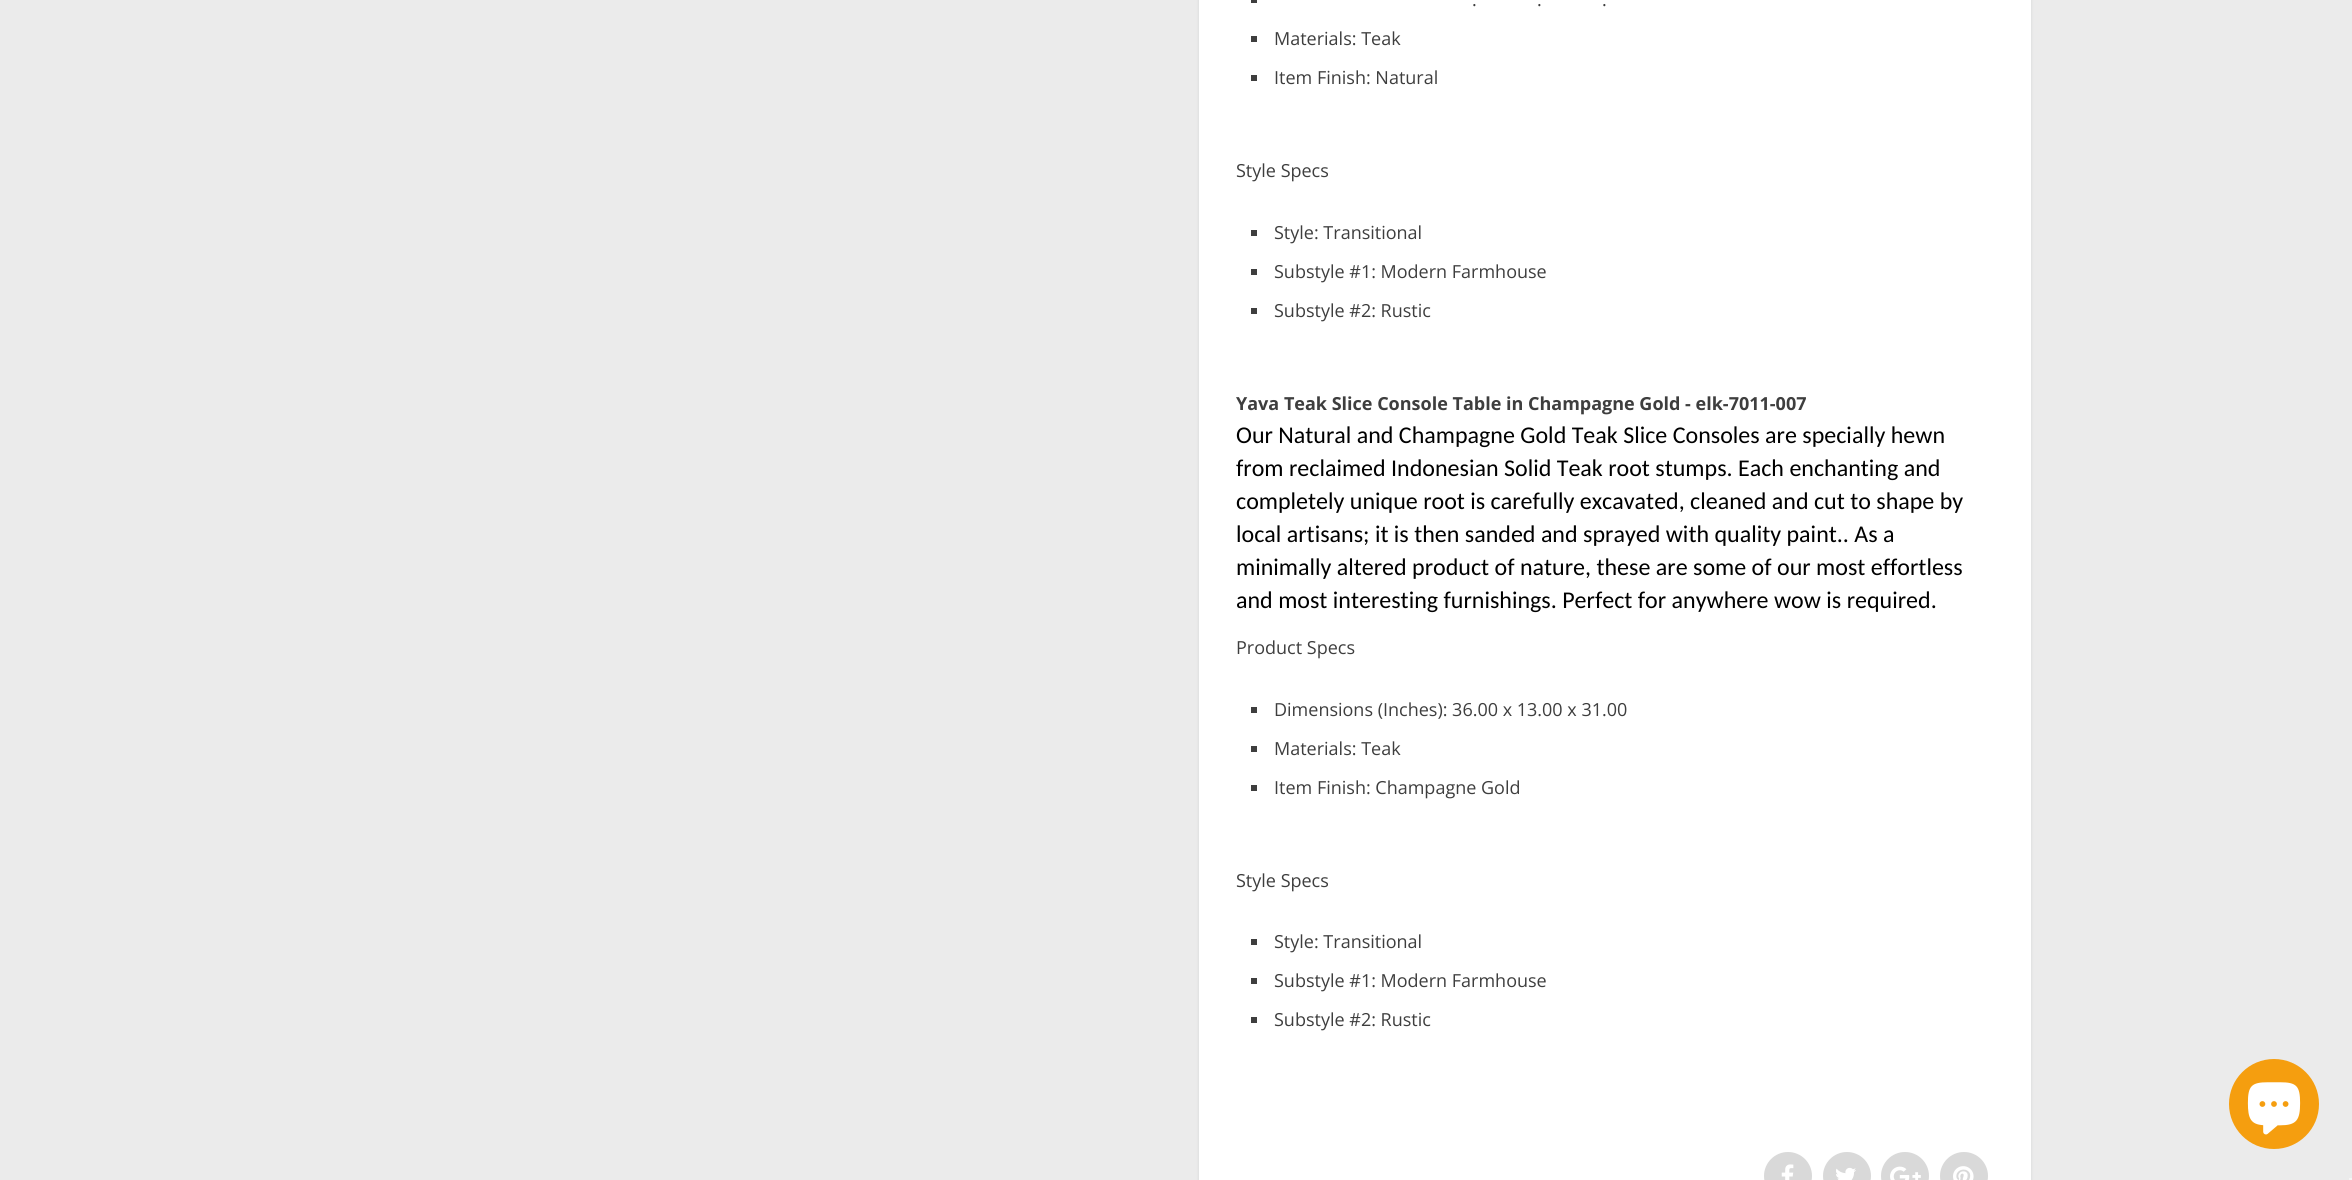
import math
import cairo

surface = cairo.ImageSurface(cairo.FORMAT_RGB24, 2352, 1180)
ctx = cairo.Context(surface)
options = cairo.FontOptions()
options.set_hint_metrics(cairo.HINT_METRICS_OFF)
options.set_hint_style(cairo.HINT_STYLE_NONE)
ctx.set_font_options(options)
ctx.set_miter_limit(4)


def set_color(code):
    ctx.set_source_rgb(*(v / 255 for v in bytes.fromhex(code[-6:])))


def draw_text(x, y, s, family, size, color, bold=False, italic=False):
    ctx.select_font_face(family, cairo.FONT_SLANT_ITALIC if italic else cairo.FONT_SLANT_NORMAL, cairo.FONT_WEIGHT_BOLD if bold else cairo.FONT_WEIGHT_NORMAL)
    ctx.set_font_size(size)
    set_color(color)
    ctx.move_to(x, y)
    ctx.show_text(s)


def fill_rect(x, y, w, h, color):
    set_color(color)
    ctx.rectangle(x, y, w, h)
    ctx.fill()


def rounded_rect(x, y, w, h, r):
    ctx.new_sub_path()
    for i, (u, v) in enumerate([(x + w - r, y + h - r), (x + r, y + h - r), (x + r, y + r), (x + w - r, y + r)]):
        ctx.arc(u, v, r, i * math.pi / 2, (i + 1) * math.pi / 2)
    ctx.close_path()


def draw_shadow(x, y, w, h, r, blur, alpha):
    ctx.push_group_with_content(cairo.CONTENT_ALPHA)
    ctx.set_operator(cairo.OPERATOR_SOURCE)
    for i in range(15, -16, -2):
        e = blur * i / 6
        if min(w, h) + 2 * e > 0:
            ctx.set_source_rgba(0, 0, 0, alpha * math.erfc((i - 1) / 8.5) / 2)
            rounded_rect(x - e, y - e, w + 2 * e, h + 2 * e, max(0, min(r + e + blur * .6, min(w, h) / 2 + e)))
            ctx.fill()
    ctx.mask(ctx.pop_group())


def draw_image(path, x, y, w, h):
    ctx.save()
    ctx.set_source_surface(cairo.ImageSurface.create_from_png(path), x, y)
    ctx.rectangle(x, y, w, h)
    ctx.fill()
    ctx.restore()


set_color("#ebebeb")
ctx.paint()
set_color("#0b191c")
draw_shadow(1199, -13, 832, 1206, 8, 1.5, 0.1)
fill_rect(1199, 0, 832, 1180, "#ffffff")
fill_rect(1251, 0, 6, 3, "#3e3e3e")
draw_text(1472, 6, ".", "Open Sans", 18, "#3e3e3e")
draw_text(1537, 6, ".", "Open Sans", 18, "#3e3e3e")
draw_text(1602, 6, ".", "Open Sans", 18, "#3e3e3e")
fill_rect(1251, 36, 6, 6, "#3e3e3e")
draw_text(1274, 45, "Materials: Teak", "Open Sans", 18, "#3e3e3e")
fill_rect(1251, 75, 6, 6, "#3e3e3e")
draw_text(1274, 84, "Item Finish: Natural", "Open Sans", 18, "#3e3e3e")
draw_text(1236, 177, "Style Specs", "Open Sans", 18, "#3e3e3e")
fill_rect(1251, 230, 6, 6, "#3e3e3e")
draw_text(1274, 239, "Style: Transitional", "Open Sans", 18, "#3e3e3e")
fill_rect(1251, 269, 6, 6, "#3e3e3e")
draw_text(1274, 278, "Substyle #1: Modern Farmhouse", "Open Sans", 18, "#3e3e3e")
fill_rect(1251, 308, 6, 6, "#3e3e3e")
draw_text(1274, 317, "Substyle #2: Rustic", "Open Sans", 18, "#3e3e3e")
draw_text(1236, 410, "Yava Teak Slice Console Table in Champagne Gold - elk-7011-007", "Open Sans", 18, "#3e3e3e", bold=True)
draw_text(1236, 443, "Our Natural and Champagne Gold Teak Slice Consoles are specially hewn", "Carlito", 24, "#000000")
draw_text(1236, 476, "from reclaimed Indonesian Solid Teak root stumps. Each enchanting and", "Carlito", 24, "#000000")
draw_text(1236, 509, "completely unique root is carefully excavated, cleaned and cut to shape by", "Carlito", 24, "#000000")
draw_text(1236, 542, "local artisans; it is then sanded and sprayed with quality paint.. As a", "Carlito", 24, "#000000")
draw_text(1236, 575, "minimally altered product of nature, these are some of our most effortless", "Carlito", 24, "#000000")
draw_text(1236, 608, "and most interesting furnishings. Perfect for anywhere wow is required.", "Carlito", 24, "#000000")
draw_text(1236, 654, "Product Specs", "Open Sans", 18, "#3e3e3e")
fill_rect(1251, 707, 6, 6, "#3e3e3e")
draw_text(1274, 716, "Dimensions (Inches): 36.00 x 13.00 x 31.00", "Open Sans", 18, "#3e3e3e")
fill_rect(1251, 746, 6, 6, "#3e3e3e")
draw_text(1274, 755, "Materials: Teak", "Open Sans", 18, "#3e3e3e")
fill_rect(1251, 785, 6, 6, "#3e3e3e")
draw_text(1274, 794, "Item Finish: Champagne Gold", "Open Sans", 18, "#3e3e3e")
draw_text(1236, 887, "Style Specs", "Open Sans", 18, "#3e3e3e")
fill_rect(1251, 939, 6, 6, "#3e3e3e")
draw_text(1274, 948, "Style: Transitional", "Open Sans", 18, "#3e3e3e")
fill_rect(1251, 978, 6, 6, "#3e3e3e")
draw_text(1274, 987, "Substyle #1: Modern Farmhouse", "Open Sans", 18, "#3e3e3e")
fill_rect(1251, 1017, 6, 6, "#3e3e3e")
draw_text(1274, 1026, "Substyle #2: Rustic", "Open Sans", 18, "#3e3e3e")
set_color("#d9d9d9")
ctx.new_path()
ctx.arc(1788, 1176, 24, 0, 2 * math.pi)
ctx.fill()
draw_image("assets/img1.png", 1781, 1164, 13, 16)
ctx.arc(1847, 1176, 24, 0, 2 * math.pi)
ctx.fill()
draw_image("assets/img2.png", 1836, 1167, 20, 13)
ctx.arc(1905, 1176, 24, 0, 2 * math.pi)
ctx.fill()
draw_image("assets/img3.png", 1890, 1166, 31, 14)
ctx.arc(1964, 1176, 24, 0, 2 * math.pi)
ctx.fill()
draw_image("assets/img4.png", 1953, 1166, 21, 14)
set_color("#f59e0f")
ctx.arc(2274, 1104, 45, 0, 2 * math.pi)
ctx.fill()
draw_image("assets/img5.png", 2247, 1082, 54, 53)
fill_rect(2349, 1178, 3, 2, "#f5f5f5")
surface.write_to_png("output.png")
